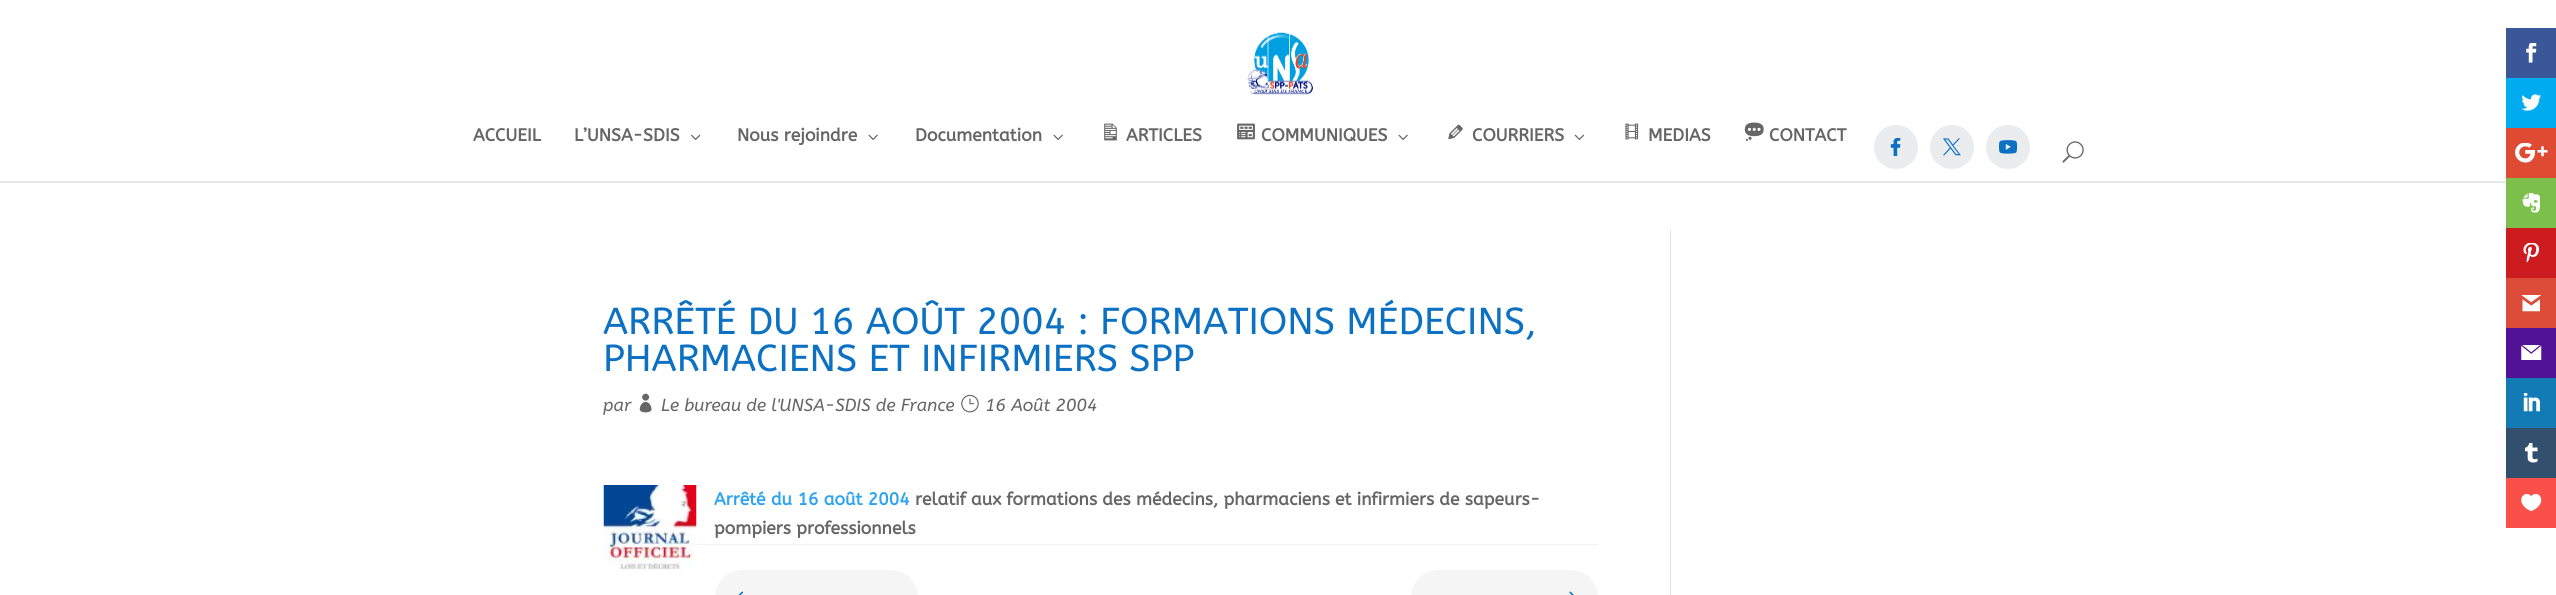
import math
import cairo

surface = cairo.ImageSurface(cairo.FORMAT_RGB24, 2556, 595)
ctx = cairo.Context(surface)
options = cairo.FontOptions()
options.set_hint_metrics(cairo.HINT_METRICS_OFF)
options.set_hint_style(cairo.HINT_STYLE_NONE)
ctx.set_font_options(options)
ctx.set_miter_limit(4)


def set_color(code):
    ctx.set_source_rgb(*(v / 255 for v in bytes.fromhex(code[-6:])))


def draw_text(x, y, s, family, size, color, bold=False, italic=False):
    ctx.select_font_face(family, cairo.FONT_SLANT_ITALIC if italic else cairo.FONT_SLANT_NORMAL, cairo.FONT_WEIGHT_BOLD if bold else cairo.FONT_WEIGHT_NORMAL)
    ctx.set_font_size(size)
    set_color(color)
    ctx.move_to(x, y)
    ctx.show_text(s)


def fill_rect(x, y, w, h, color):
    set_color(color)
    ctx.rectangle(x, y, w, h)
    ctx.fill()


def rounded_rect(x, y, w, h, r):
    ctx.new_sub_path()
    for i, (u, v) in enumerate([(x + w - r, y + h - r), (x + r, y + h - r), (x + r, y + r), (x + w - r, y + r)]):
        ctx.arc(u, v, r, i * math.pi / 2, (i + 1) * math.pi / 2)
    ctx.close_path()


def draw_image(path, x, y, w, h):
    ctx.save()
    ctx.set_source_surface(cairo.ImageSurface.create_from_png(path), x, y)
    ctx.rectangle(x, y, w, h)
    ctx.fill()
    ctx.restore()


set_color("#ffffff")
ctx.paint()
fill_rect(0, 181, 2506, 2, "#e6e6e6")
draw_image("assets/img1.png", 1247, 32, 66, 63)
draw_text(473, 141, "ACCUEIL", "ABeeZee", 17.5, "#666666", bold=True)
draw_text(574, 141, "L’UNSA-SDIS", "ABeeZee", 17.5, "#666666", bold=True)
draw_image("assets/img2.png", 691, 134, 10, 6)
draw_text(737, 141, "Nous rejoindre", "ABeeZee", 17.5, "#666666", bold=True)
draw_image("assets/img3.png", 868, 134, 10, 6)
draw_text(915, 141, "Documentation", "ABeeZee", 17.5, "#666666", bold=True)
draw_image("assets/img3.png", 1053, 134, 10, 6)
draw_image("assets/img4.png", 1104, 123, 13, 18)
draw_text(1126, 141, "ARTICLES", "ABeeZee", 17.5, "#666666", bold=True)
draw_image("assets/img5.png", 1237, 123, 18, 17)
draw_text(1261, 141, "COMMUNIQUES", "ABeeZee", 17.5, "#666666", bold=True)
draw_image("assets/img3.png", 1398, 134, 10, 6)
draw_image("assets/img6.png", 1448, 124, 15, 16)
draw_text(1472, 141, "COURRIERS", "ABeeZee", 17.5, "#666666", bold=True)
draw_image("assets/img7.png", 1574, 134, 10, 6)
draw_image("assets/img8.png", 1625, 123, 14, 17)
draw_text(1648, 141, "MEDIAS", "ABeeZee", 17.5, "#666666", bold=True)
draw_image("assets/img9.png", 1744, 122, 20, 19)
draw_text(1769, 141, "CONTACT", "ABeeZee", 17.5, "#666666", bold=True)
set_color("#eaeced")
ctx.new_path()
ctx.arc(1896, 147, 22, 0, 2 * math.pi)
ctx.fill()
draw_image("assets/img10.png", 1890, 138, 11, 18)
ctx.arc(1952, 147, 22, 0, 2 * math.pi)
ctx.fill()
draw_image("assets/img11.png", 1943, 138, 18, 18)
ctx.arc(2008, 147, 22, 0, 2 * math.pi)
ctx.fill()
draw_image("assets/img12.png", 1999, 140, 19, 14)
draw_image("assets/img13.png", 2062, 141, 22, 22)
draw_text(603, 334, "ARRÊTÉ DU 16 AOÛT 2004 : FORMATIONS MÉDECINS,", "ABeeZee", 37.5, "#0c71c3")
draw_text(603, 371, "PHARMACIENS ET INFIRMIERS SPP", "ABeeZee", 37.5, "#0c71c3")
draw_text(603, 411, "par", "ABeeZee", 17.5, "#666666", italic=True)
draw_image("assets/img14.png", 639, 393, 13, 20)
draw_text(661, 411, "Le bureau de l'UNSA-SDIS de France", "ABeeZee", 17.5, "#666666", italic=True)
draw_image("assets/img15.png", 961, 394, 18, 19)
draw_text(985, 411, "16 Août 2004", "ABeeZee", 17.5, "#666666", italic=True)
fill_rect(696, 544, 902, 1, "#f2f2f2")
draw_image("assets/img16.png", 603, 485, 94, 85)
draw_text(714, 505, "Arrêté du 16 août 2004", "ABeeZee", 17.5, "#2ea3f2", bold=True)
draw_text(915, 505, "relatif aux formations des médecins, pharmaciens et infirmiers de sapeurs-", "ABeeZee", 17.5, "#666666", bold=True)
draw_text(714, 534, "pompiers professionnels", "ABeeZee", 17.5, "#666666", bold=True)
set_color("#f5f5f5")
rounded_rect(715, 570, 203, 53, 27.5)
ctx.fill()
draw_image("assets/img17.png", 738, 591, 6, 4)
rounded_rect(1411, 570, 187, 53, 27.5)
ctx.fill()
draw_image("assets/img18.png", 1569, 591, 5, 4)
fill_rect(1670, 230, 1, 365, "#e2e2e2")
fill_rect(2506, 28, 50, 50, "#3a579a")
draw_image("assets/img19.png", 2526, 43, 11, 20)
fill_rect(2506, 78, 50, 50, "#00abf0")
draw_image("assets/img20.png", 2521, 94, 21, 17)
fill_rect(2506, 128, 50, 50, "#df4a32")
draw_image("assets/img21.png", 2515, 143, 33, 20)
fill_rect(2506, 178, 50, 50, "#7cbf4b")
draw_image("assets/img22.png", 2522, 193, 18, 20)
fill_rect(2506, 228, 50, 50, "#cd1c1f")
draw_image("assets/img23.png", 2523, 243, 16, 20)
fill_rect(2506, 278, 50, 50, "#dd4b39")
draw_image("assets/img24.png", 2521, 295, 21, 17)
fill_rect(2506, 328, 50, 50, "#511295")
draw_image("assets/img25.png", 2521, 345, 21, 15)
fill_rect(2506, 378, 50, 50, "#127bb6")
draw_image("assets/img26.png", 2523, 393, 17, 19)
fill_rect(2506, 428, 50, 50, "#32506d")
draw_image("assets/img27.png", 2525, 443, 13, 20)
fill_rect(2506, 478, 50, 50, "#f95149")
draw_image("assets/img28.png", 2521, 493, 21, 18)
surface.write_to_png("output.png")
